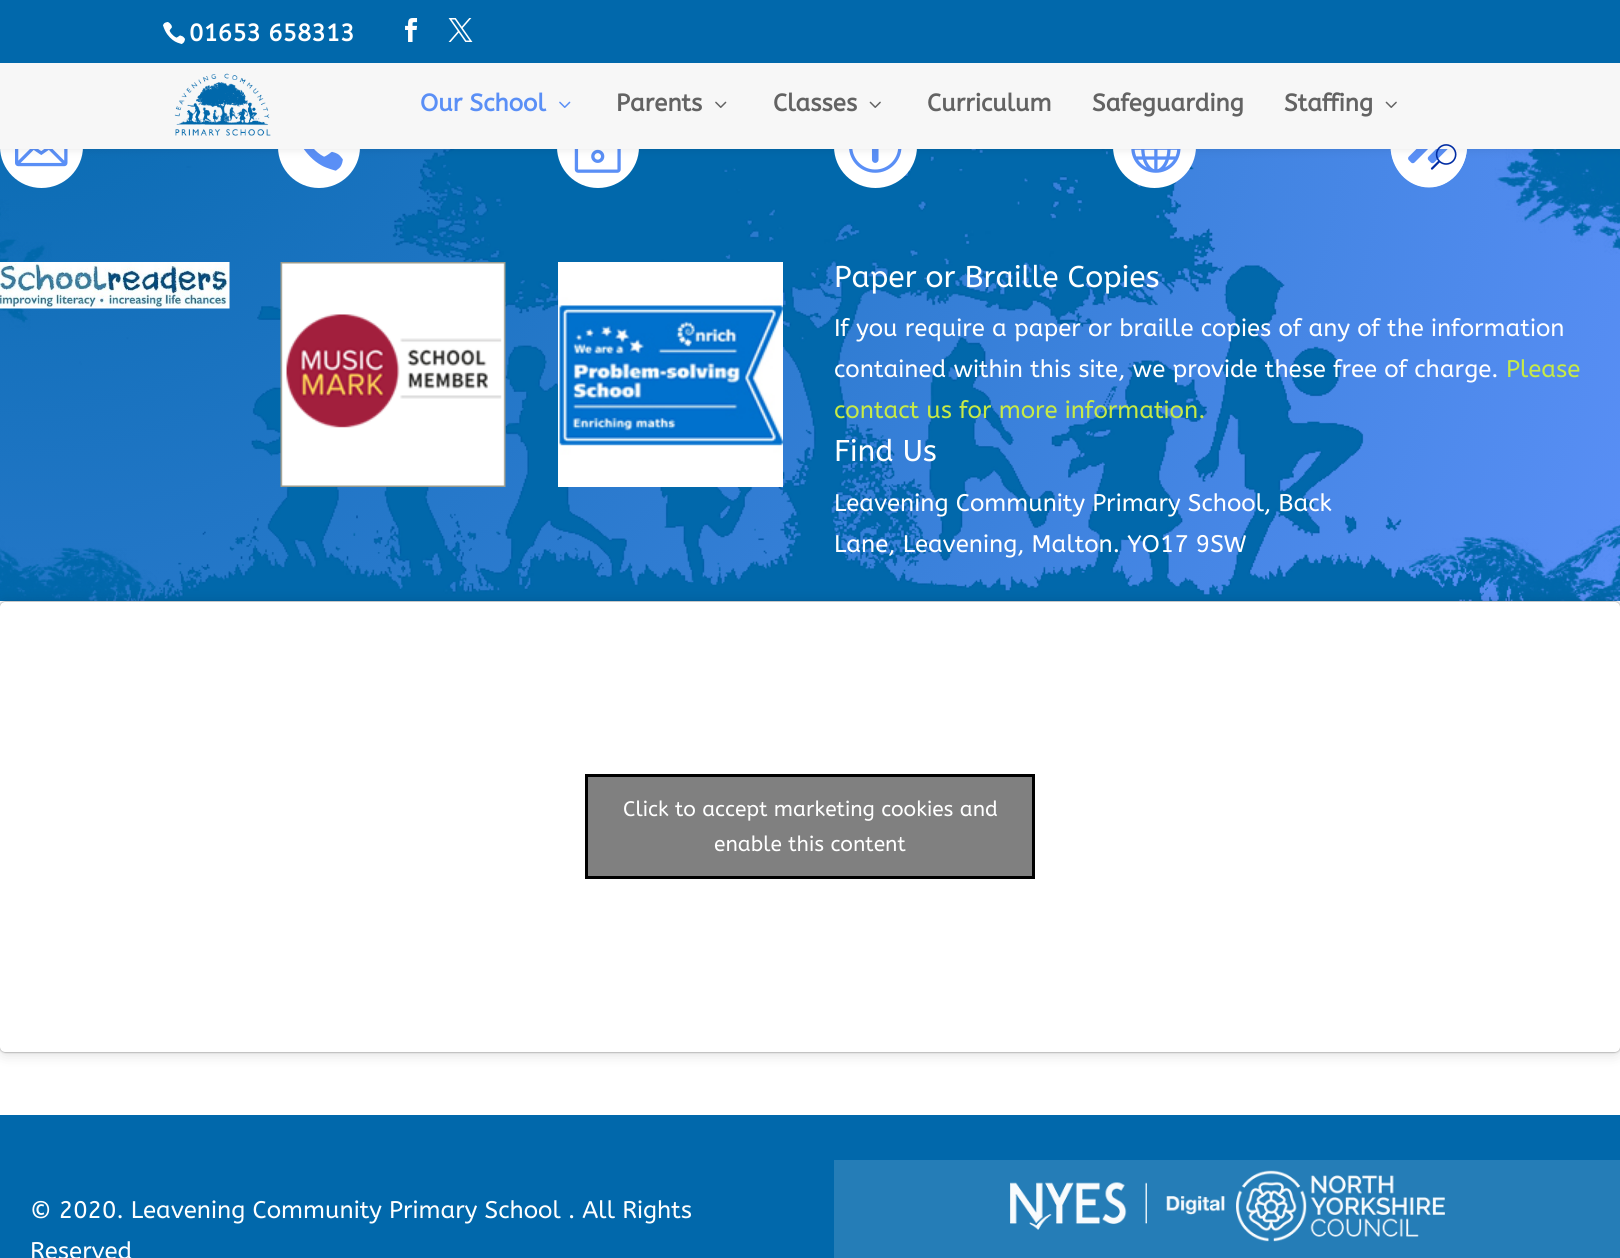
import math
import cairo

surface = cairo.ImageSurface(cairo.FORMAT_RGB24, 1620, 1258)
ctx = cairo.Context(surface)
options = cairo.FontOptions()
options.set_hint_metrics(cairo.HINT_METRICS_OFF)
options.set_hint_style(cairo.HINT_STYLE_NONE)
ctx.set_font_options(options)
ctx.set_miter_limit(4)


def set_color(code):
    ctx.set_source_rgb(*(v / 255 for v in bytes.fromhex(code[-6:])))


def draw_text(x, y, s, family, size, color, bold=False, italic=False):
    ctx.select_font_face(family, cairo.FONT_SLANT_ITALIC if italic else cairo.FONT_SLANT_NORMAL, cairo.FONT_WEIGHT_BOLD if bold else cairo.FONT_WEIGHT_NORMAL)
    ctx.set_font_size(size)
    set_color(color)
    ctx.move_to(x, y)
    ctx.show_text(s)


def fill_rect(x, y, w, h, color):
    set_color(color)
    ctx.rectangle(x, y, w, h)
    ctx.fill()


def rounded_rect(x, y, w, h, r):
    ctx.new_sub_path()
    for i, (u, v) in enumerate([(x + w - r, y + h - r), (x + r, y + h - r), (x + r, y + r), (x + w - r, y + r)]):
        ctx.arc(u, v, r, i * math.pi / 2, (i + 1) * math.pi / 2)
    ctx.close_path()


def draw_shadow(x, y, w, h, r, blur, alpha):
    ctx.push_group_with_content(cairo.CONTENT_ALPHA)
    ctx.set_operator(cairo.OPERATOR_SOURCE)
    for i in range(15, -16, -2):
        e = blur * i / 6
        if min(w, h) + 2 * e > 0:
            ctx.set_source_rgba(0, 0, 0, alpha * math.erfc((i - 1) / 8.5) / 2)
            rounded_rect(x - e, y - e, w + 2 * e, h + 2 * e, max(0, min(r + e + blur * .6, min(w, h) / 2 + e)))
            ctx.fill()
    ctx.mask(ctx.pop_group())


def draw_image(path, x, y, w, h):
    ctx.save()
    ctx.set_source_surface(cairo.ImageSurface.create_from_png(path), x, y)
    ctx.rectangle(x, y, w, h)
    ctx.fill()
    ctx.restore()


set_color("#ffffff")
ctx.paint()
draw_image("assets/img9.png", 0, 149, 1620, 452)
set_color("#ffffff")
ctx.arc(41.5, 146.5, 40, 0, 2 * math.pi)
ctx.fill_preserve()
ctx.set_line_width(3)
ctx.stroke()
draw_image("assets/img10.png", 15, 149, 53, 18)
rounded_rect(279.5, 106.5, 79, 80, 39.5)
ctx.fill_preserve()
ctx.stroke()
draw_image("assets/img11.png", 303, 149, 40, 22)
rounded_rect(558.5, 106.5, 79, 80, 39.5)
ctx.fill_preserve()
ctx.stroke()
draw_image("assets/img12.png", 574, 149, 47, 24)
ctx.arc(875.5, 146.5, 40, 0, 2 * math.pi)
ctx.fill_preserve()
ctx.stroke()
draw_image("assets/img13.png", 849, 149, 53, 24)
ctx.arc(1154.5, 146.5, 40, 0, 2 * math.pi)
ctx.fill_preserve()
ctx.stroke()
draw_image("assets/img14.png", 1131, 149, 50, 24)
ctx.new_path()
ctx.move_to(1429, 105)
ctx.curve_to(1450, 105, 1467, 123.5, 1467, 146)
ctx.curve_to(1467, 168.5, 1450, 187, 1429, 187)
ctx.curve_to(1408, 187, 1391, 168.5, 1391, 146)
ctx.curve_to(1391, 123.5, 1408, 105, 1429, 105)
ctx.close_path()
ctx.fill()
ctx.new_path()
ctx.move_to(1429, 106.5)
ctx.curve_to(1449, 106.5, 1465.5, 124.5, 1465.5, 146)
ctx.curve_to(1465.5, 168, 1449, 186, 1429, 186)
ctx.curve_to(1408.5, 186, 1392, 168, 1392, 146)
ctx.curve_to(1392, 124.5, 1408.5, 106.5, 1429, 106.5)
ctx.close_path()
ctx.stroke()
draw_image("assets/img15.png", 1408, 149, 40, 15)
set_color("#000000")
draw_shadow(0, 63, 1620, 86, 0, 5, 0.1)
fill_rect(0, 0, 1620, 63, "#0168ab")
draw_image("assets/img1.png", 163, 22, 22, 22)
draw_text(189, 41, "01653 658313", "ABeeZee", 24, "#ffffff", bold=True)
draw_image("assets/img2.png", 405, 18, 13, 24)
draw_image("assets/img3.png", 448, 18, 25, 24)
fill_rect(0, 63, 1620, 86, "#f7f7f7")
draw_image("assets/img4.png", 174, 73, 97, 63)
draw_text(420, 111, "Our School", "ABeeZee", 24, "#5a8ff6", bold=True)
draw_image("assets/img5.png", 559, 101, 12, 7)
draw_text(616, 111, "Parents", "ABeeZee", 24, "#636363", bold=True)
draw_image("assets/img6.png", 715, 101, 12, 7)
draw_text(773, 111, "Classes", "ABeeZee", 24, "#636363", bold=True)
draw_image("assets/img7.png", 869, 101, 12, 7)
draw_text(927, 111, "Curriculum", "ABeeZee", 24, "#636363", bold=True)
draw_text(1092, 111, "Safeguarding", "ABeeZee", 24, "#636363", bold=True)
draw_text(1284, 111, "Staffing", "ABeeZee", 24, "#636363", bold=True)
draw_image("assets/img7.png", 1385, 101, 12, 7)
draw_image("assets/img8.png", 1430, 144, 27, 26)
draw_image("assets/img16.png", 0, 262, 230, 47)
draw_image("assets/img17.png", 280, 262, 226, 225)
draw_image("assets/img18.png", 558, 262, 225, 225)
draw_text(834, 287, "Paper or Braille Copies", "ABeeZee", 30, "#ffffff")
draw_text(834, 336, "If you require a paper or braille copies of any of the information", "ABeeZee", 24, "#ffffff")
draw_text(834, 377, "contained within this site, we provide these free of charge.", "ABeeZee", 24, "#ffffff")
draw_text(1506, 377, "Please", "ABeeZee", 24, "#c7ea46")
draw_text(834, 418, "contact us for more information.", "ABeeZee", 24, "#c7ea46")
draw_text(834, 461, "Find Us", "ABeeZee", 30, "#ffffff")
draw_text(834, 511, "Leavening Community Primary School, Back", "ABeeZee", 24, "#ffffff")
draw_text(834, 552, "Lane, Leavening, Malton. YO17 9SW", "ABeeZee", 24, "#ffffff")
set_color("#000000")
draw_shadow(0, 603, 1620, 450, 5, 7.5, 0.15)
draw_shadow(0, 602, 1620, 450, 5, 1, 0.5)
set_color("#ffffff")
rounded_rect(0, 602, 1620, 450, 5)
ctx.fill()
set_color("#808080")
ctx.rectangle(586.5, 775.5, 447, 102)
ctx.fill_preserve()
set_color("#000000")
ctx.stroke()
draw_text(623, 816, "Click to accept marketing cookies and", "ABeeZee", 21, "#ffffff")
draw_text(714, 851, "enable this content", "ABeeZee", 21, "#ffffff")
fill_rect(0, 1115, 1620, 143, "#0168ab")
draw_text(30, 1218, "© 2020. Leavening Community Primary School . All Rights", "ABeeZee", 24, "#ffffff")
draw_text(30, 1259, "Reserved", "ABeeZee", 24, "#ffffff")
fill_rect(834, 1160, 786, 98, "#257db7")
draw_image("assets/img19.png", 1010, 1170, 435, 72)
surface.write_to_png("output.png")
